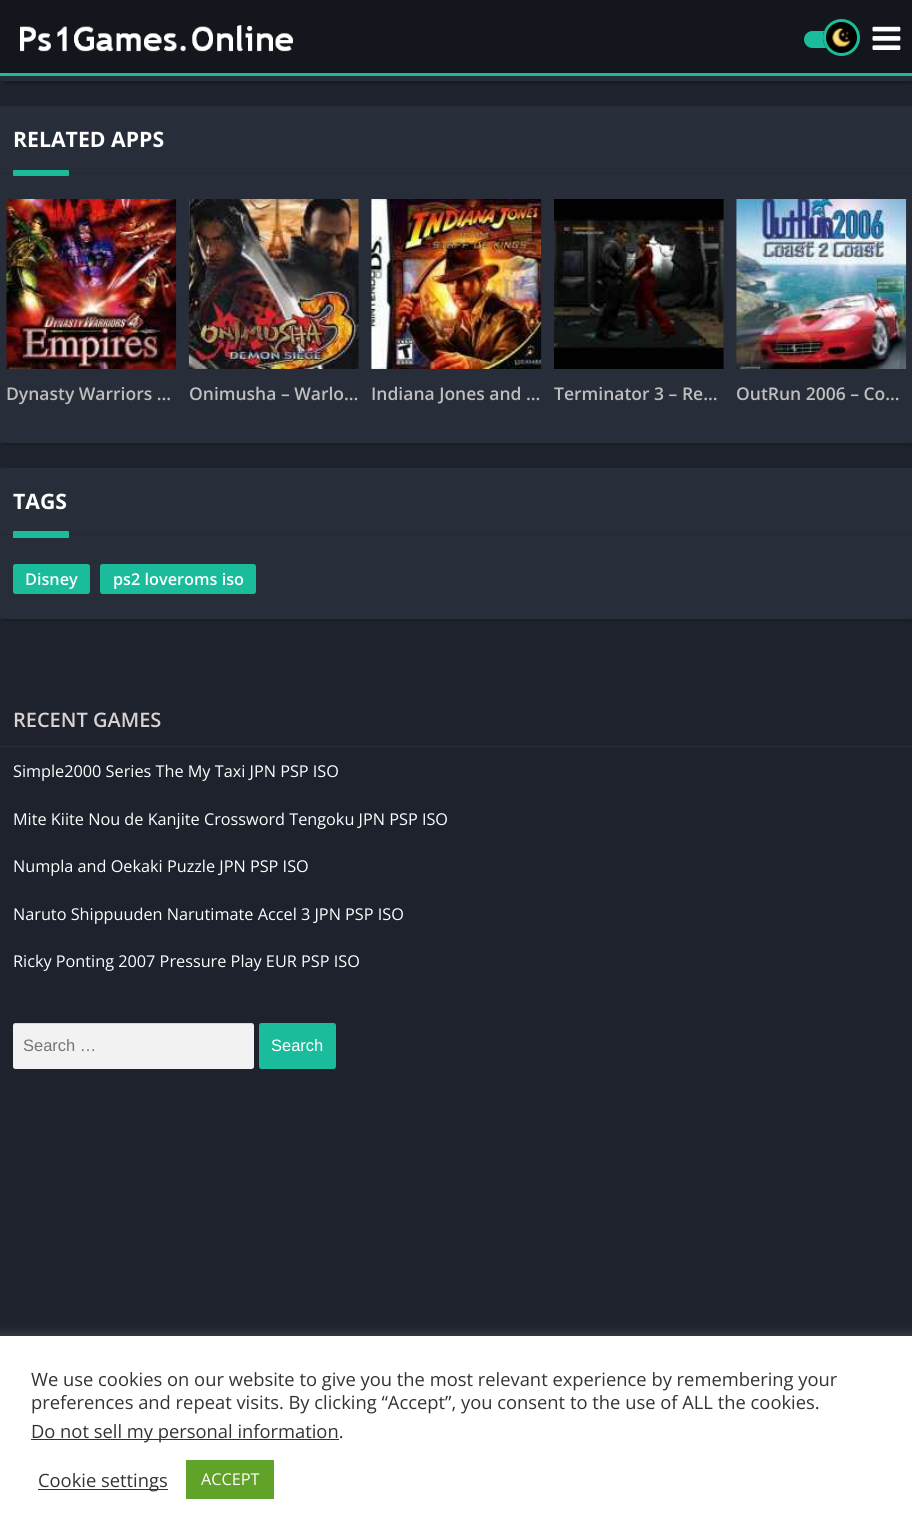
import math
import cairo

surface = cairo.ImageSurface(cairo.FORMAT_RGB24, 912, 1536)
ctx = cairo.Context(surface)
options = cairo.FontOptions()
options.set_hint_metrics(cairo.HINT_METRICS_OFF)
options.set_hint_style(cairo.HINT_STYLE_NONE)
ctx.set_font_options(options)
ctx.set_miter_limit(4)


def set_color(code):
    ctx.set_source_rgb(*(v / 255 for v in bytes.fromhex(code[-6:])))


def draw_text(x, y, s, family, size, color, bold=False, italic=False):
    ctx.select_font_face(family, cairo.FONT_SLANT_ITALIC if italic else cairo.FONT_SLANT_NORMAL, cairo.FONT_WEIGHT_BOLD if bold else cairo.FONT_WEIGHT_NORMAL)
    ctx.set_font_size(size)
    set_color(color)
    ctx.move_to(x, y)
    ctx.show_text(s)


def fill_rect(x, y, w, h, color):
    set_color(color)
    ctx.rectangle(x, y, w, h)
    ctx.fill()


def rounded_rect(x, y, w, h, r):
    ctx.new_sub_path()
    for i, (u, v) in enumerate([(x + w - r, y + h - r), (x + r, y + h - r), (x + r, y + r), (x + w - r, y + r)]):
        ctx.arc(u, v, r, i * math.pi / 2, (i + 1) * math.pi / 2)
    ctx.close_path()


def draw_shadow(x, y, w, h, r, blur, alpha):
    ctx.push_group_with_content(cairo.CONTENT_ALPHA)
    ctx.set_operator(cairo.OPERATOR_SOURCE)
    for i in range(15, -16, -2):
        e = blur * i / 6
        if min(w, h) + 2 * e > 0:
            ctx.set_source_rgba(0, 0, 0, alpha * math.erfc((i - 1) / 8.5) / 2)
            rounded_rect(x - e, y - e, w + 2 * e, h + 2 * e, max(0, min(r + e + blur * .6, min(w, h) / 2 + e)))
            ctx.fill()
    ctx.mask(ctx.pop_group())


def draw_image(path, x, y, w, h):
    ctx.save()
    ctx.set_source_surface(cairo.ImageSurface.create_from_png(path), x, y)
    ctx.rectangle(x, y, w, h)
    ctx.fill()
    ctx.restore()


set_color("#1d222d")
ctx.paint()
set_color("#1a1c1f")
draw_shadow(3, -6, 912, 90, 2.5, 1, 1)
set_color("#282d3a")
rounded_rect(0, -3, 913, 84, 2.5)
ctx.fill()
fill_rect(0, 0, 912, 73, "#13161d")
fill_rect(0, 73, 912, 3, "#1bbc9b")
draw_image("assets/img1.png", 20, 25, 273, 27)
rounded_rect(804, 31, 56, 17, 8.5)
ctx.fill()
set_color("#000000")
ctx.arc(841.5, 37.5, 18.5, 0, 2 * math.pi)
ctx.fill()
draw_image("assets/img2.png", 832, 28, 19, 19)
ctx.arc(841.5, 37.5, 17, 0, 2 * math.pi)
set_color("#1bbc9b")
ctx.set_line_width(3)
ctx.stroke()
draw_image("assets/img3.png", 872, 26, 29, 24)
set_color("#1a1c1f")
draw_shadow(3, 109, 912, 336, 2.5, 1, 1)
set_color("#282d3a")
rounded_rect(0, 106, 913, 337, 2.5)
ctx.fill()
fill_rect(0, 173, 912, 1, "#232834")
draw_text(13, 147, "RELATED APPS", "Open Sans", 21.25, "#ffffff", bold=True)
set_color("#1bbc9b")
rounded_rect(13, 170, 56, 6, 1)
ctx.fill()
draw_image("assets/img4.png", 6, 199, 171, 170)
draw_text(6, 400, "Dynasty Warriors …", "Open Sans SemiBold", 17.5, "#bfbfbf")
draw_image("assets/img5.png", 188, 199, 171, 170)
draw_text(189, 400, "Onimusha – Warlo…", "Open Sans SemiBold", 17.5, "#bfbfbf")
draw_image("assets/img6.png", 371, 199, 171, 170)
draw_text(371, 400, "Indiana Jones and …", "Open Sans SemiBold", 17.5, "#bfbfbf")
draw_image("assets/img7.png", 554, 199, 170, 170)
draw_text(554, 400, "Terminator 3 – Re…", "Open Sans SemiBold", 17.5, "#bfbfbf")
draw_image("assets/img8.png", 736, 199, 171, 170)
draw_text(736, 400, "OutRun 2006 – Co…", "Open Sans SemiBold", 17.5, "#bfbfbf")
set_color("#1a1c1f")
draw_shadow(3, 470, 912, 151, 2.5, 1, 1)
set_color("#282d3a")
rounded_rect(0, 468, 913, 151, 2.5)
ctx.fill()
fill_rect(0, 534, 912, 1, "#232834")
draw_text(13, 509, "TAGS", "Open Sans", 21.25, "#ffffff", bold=True)
set_color("#1bbc9b")
rounded_rect(13, 531, 56, 7, 1)
ctx.fill()
rounded_rect(13, 564, 77, 30, 2.5)
ctx.fill()
draw_text(25, 585, "Disney", "Open Sans SemiBold", 16.25, "#ffffff")
set_color("#1bbc9b")
rounded_rect(100, 564, 156, 30, 2.5)
ctx.fill()
draw_text(113, 585, "ps2 loveroms iso", "Open Sans SemiBold", 16.25, "#ffffff")
fill_rect(0, 746, 912, 1, "#282d3a")
draw_text(13, 727, "RECENT GAMES", "Open Sans SemiBold", 20, "#d8d2d2")
draw_text(13, 777, "Simple2000 Series The My Taxi JPN PSP ISO", "Open Sans", 16.25, "#ffffff")
draw_text(13, 825, "Mite Kiite Nou de Kanjite Crossword Tengoku JPN PSP ISO", "Open Sans", 16.25, "#ffffff")
draw_text(13, 872, "Numpla and Oekaki Puzzle JPN PSP ISO", "Open Sans", 16.25, "#ffffff")
draw_text(13, 920, "Naruto Shippuuden Narutimate Accel 3 JPN PSP ISO", "Open Sans", 16.25, "#ffffff")
draw_text(13, 967, "Ricky Ponting 2007 Pressure Play EUR PSP ISO", "Open Sans", 16.25, "#ffffff")
set_color("#f2f2f2")
rounded_rect(13, 1023, 241, 46, 2.5)
ctx.fill()
ctx.set_source_rgba(0, 0, 0, 0.12)
ctx.new_path()
ctx.move_to(15, 1024)
ctx.line_to(251, 1024)
ctx.curve_to(253, 1024, 254, 1025, 254, 1026)
ctx.curve_to(254, 1025, 253, 1023, 252, 1023)
ctx.line_to(15, 1023)
ctx.line_to(13, 1025)
ctx.close_path()
ctx.fill()
draw_text(23, 1051, "Search …", "Liberation Sans", 16.5, "#757575")
set_color("#1bbc9b")
rounded_rect(259, 1023, 77, 46, 2.5)
ctx.fill()
draw_text(271, 1051, "Search", "Liberation Sans", 16.5, "#ffffff")
set_color("#acabab")
draw_shadow(0, 1335, 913, 200, 0, 6, 0.3)
fill_rect(0, 1336, 912, 200, "#ffffff")
draw_text(31, 1386, "We use cookies on our website to give you the most relevant experience by remembering your", "Open Sans", 18.35, "#333333")
draw_text(31, 1409, "preferences and repeat visits. By clicking “Accept”, you consent to the use of ALL the cookies.", "Open Sans", 18.35, "#333333")
fill_rect(31, 1439, 308, 1, "#333333")
draw_text(31, 1438, "Do not sell my personal information.", "Open Sans", 18.35, "#333333")
fill_rect(38, 1489, 130, 1, "#333333")
draw_text(38, 1487, "Cookie settings", "Open Sans", 18.35, "#333333")
fill_rect(186, 1460, 88, 39, "#61a229")
draw_text(201, 1485, "ACCEPT", "Open Sans", 16.25, "#ffffff")
surface.write_to_png("output.png")
